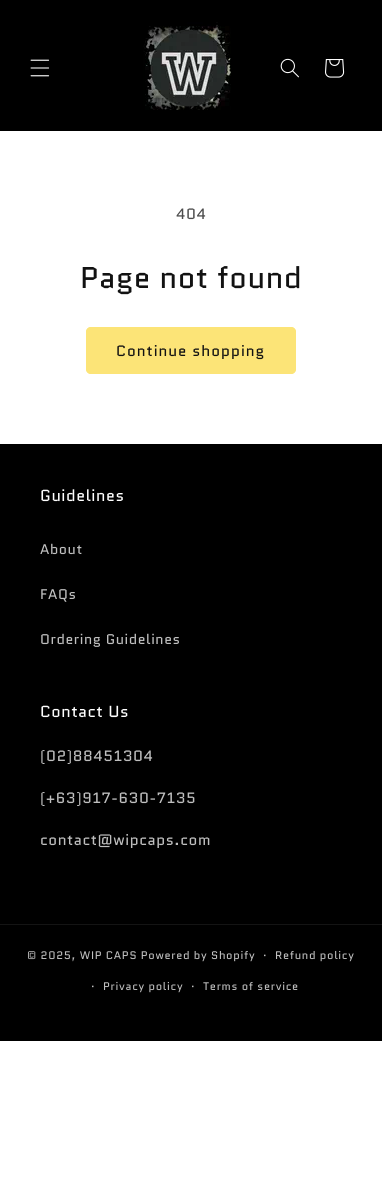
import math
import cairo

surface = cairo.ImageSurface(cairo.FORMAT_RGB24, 382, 1180)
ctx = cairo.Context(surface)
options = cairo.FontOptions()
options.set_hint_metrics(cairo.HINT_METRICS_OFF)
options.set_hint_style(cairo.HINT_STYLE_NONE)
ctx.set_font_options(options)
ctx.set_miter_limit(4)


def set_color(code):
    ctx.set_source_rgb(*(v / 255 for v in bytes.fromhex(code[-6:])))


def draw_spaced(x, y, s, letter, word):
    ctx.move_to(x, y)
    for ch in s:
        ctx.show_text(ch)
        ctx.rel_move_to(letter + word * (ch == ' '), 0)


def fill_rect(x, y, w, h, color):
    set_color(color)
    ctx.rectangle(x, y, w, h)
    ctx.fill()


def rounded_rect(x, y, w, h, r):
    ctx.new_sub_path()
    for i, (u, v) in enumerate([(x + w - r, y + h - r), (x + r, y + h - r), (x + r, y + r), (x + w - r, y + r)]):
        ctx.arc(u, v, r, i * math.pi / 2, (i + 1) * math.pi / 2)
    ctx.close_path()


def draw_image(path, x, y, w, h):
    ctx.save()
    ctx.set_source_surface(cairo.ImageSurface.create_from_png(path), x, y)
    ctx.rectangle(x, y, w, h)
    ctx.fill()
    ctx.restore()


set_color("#ffffff")
ctx.paint()
fill_rect(0, 0, 382, 131, "#000000")
draw_image("assets/img1.png", 30, 59, 20, 18)
draw_image("assets/img2.png", 143, 22, 88, 88)
draw_image("assets/img3.png", 280, 58, 19, 20)
draw_image("assets/img4.png", 325, 59, 20, 19)
ctx.select_font_face("Quantico")
ctx.set_font_size(15)
set_color("#4d4d4d")
draw_spaced(176, 219, "404", 0.6, 0)
ctx.set_font_size(30)
set_color("#121212")
draw_spaced(80, 288, "Page not found", 0.6, 0)
set_color("#fce477")
rounded_rect(86, 327, 210, 47, 5)
ctx.fill()
rounded_rect(86.5, 327.5, 209, 46, 4.5)
ctx.set_line_width(1)
ctx.stroke()
ctx.set_font_size(15)
set_color("#121212")
draw_spaced(116, 356, "Continue shopping", 1, 0)
fill_rect(0, 444, 382, 597, "#000000")
ctx.set_font_size(16)
set_color("#ffffff")
draw_spaced(40, 501, "Guidelines", 0.6, 0)
ctx.set_font_size(14)
set_color("#bfbfbf")
draw_spaced(40, 554, "About", 0.6, 0)
draw_spaced(40, 599, "FAQs", 0.6, 0)
draw_spaced(40, 644, "Ordering Guidelines", 0.6, 0)
ctx.set_font_size(16)
set_color("#ffffff")
draw_spaced(40, 717, "Contact Us", 0.6, 0)
ctx.set_font_size(15)
set_color("#bfbfbf")
draw_spaced(40, 761, "(02)88451304", 0.6, 0)
draw_spaced(40, 803, "(+63)917-630-7135", 0.6, 0)
draw_spaced(40, 845, "contact@wipcaps.com", 0.6, 0)
fill_rect(0, 924, 382, 1, "#141414")
ctx.set_font_size(11)
set_color("#bfbfbf")
draw_spaced(27, 959, "© 2025, WIP CAPS Powered by Shopify", 0.7, 0)
ctx.set_font_size(10)
draw_spaced(263, 959, "·", 0.7, 0)
ctx.set_font_size(11)
draw_spaced(275, 959, "Refund policy", 0.7, 0)
ctx.set_font_size(10)
draw_spaced(91, 990, "·", 0.7, 0)
ctx.set_font_size(11)
draw_spaced(103, 990, "Privacy policy", 0.7, 0)
ctx.set_font_size(10)
draw_spaced(191, 990, "·", 0.7, 0)
ctx.set_font_size(11)
draw_spaced(203, 990, "Terms of service", 0.7, 0)
surface.write_to_png("output.png")
